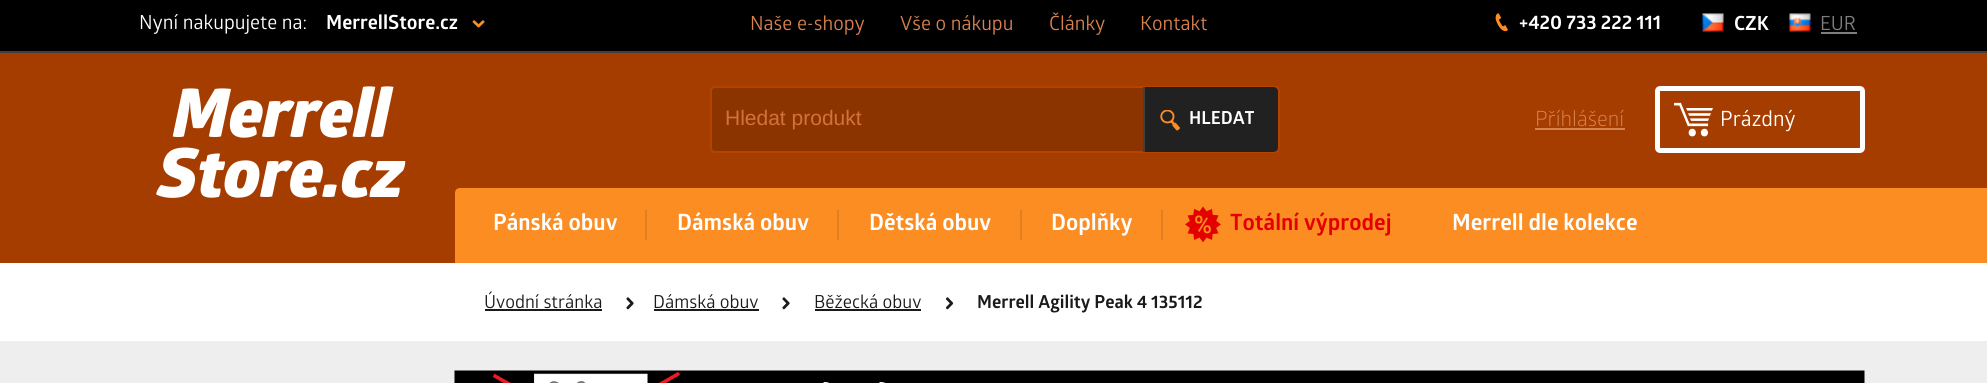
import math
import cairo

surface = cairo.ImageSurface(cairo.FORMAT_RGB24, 1987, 383)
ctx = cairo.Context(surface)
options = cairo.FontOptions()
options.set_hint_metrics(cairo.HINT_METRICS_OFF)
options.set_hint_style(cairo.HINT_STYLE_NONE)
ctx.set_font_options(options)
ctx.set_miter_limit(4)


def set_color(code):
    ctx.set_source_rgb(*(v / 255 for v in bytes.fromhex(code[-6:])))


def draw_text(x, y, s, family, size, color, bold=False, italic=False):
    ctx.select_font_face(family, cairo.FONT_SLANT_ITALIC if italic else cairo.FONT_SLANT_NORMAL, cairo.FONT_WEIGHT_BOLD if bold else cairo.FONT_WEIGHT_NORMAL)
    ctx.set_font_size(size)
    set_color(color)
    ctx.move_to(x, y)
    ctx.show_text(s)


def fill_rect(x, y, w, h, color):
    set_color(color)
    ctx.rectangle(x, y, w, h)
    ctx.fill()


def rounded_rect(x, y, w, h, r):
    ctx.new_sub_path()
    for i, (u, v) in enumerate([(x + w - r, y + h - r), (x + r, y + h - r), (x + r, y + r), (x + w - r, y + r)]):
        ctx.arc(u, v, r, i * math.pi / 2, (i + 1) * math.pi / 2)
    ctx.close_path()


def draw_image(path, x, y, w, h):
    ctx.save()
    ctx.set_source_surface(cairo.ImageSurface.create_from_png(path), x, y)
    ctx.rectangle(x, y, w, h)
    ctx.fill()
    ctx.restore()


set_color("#ffffff")
ctx.paint()
fill_rect(0, 53, 1987, 210, "#a53d00")
fill_rect(0, 0, 1987, 51, "#000000")
draw_text(750, 30, "Naše e-shopy", "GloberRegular", 19.5, "#d7814e")
draw_text(900, 30, "Vše o nákupu", "GloberRegular", 19.5, "#d7814e")
draw_text(1049, 30, "Články", "GloberRegular", 19.5, "#d7814e")
draw_text(1140, 30, "Kontakt", "GloberRegular", 19.5, "#d7814e")
draw_text(173, 137, "Merrell", "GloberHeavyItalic", 67.5, "#ffffff")
draw_text(158, 197, "Store.cz", "GloberHeavyItalic", 67.5, "#ffffff")
set_color("#8c3400")
rounded_rect(711, 87, 568, 65, 4)
ctx.fill_preserve()
set_color("#b44300")
ctx.stroke()
draw_text(725, 125, "Hledat produkt", "Liberation Sans", 21, "#d27239")
set_color("#222121")
ctx.new_path()
ctx.move_to(1143, 87)
ctx.line_to(1273, 87)
ctx.curve_to(1276, 87, 1278, 89, 1278, 92)
ctx.line_to(1278, 147)
ctx.curve_to(1278, 150, 1276, 152, 1273, 152)
ctx.line_to(1143, 152)
ctx.close_path()
ctx.fill()
draw_image("assets/img1.png", 1160, 110, 20, 21)
fill_rect(1143, 87, 2, 65, "#404040")
draw_text(1189, 124, "HLEDAT", "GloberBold", 18, "#ffffff")
draw_text(1535, 126, "Příhlášení", "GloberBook", 21, "#d7814e")
fill_rect(1535, 128, 90, 2, "#d7814e")
rounded_rect(1657.5, 88.5, 205, 62, 2.5)
set_color("#ffffff")
ctx.set_line_width(5)
ctx.stroke()
draw_image("assets/img2.png", 1674, 102, 39, 35)
draw_text(1720, 126, "Prázdný", "GloberRegular", 21, "#ffffff")
set_color("#fb8d23")
ctx.new_path()
ctx.move_to(460, 188)
ctx.line_to(1850, 188)
ctx.line_to(1850, 263)
ctx.line_to(455, 263)
ctx.line_to(455, 193)
ctx.curve_to(455, 190, 457, 188, 460, 188)
ctx.close_path()
ctx.fill()
draw_text(493, 230, "Pánská obuv", "GloberBold", 22.5, "#ffffff")
fill_rect(645, 210, 2, 30, "#e27f20")
draw_text(677, 230, "Dámská obuv", "GloberBold", 22.5, "#ffffff")
fill_rect(837, 210, 2, 30, "#e27f20")
draw_text(869, 230, "Dětská obuv", "GloberBold", 22.5, "#ffffff")
fill_rect(1020, 210, 2, 30, "#e27f20")
draw_text(1051, 230, "Doplňky", "GloberBold", 22.5, "#ffffff")
fill_rect(1161, 210, 2, 30, "#e27f20")
draw_image("assets/img3.png", 1185, 206, 36, 37)
draw_text(1230, 230, "Totální výprodej", "GloberBold", 22.5, "#e50000")
draw_text(1452, 230, "Merrell dle kolekce", "GloberBold", 22.5, "#ffffff")
fill_rect(1850, 188, 137, 75, "#fb8d23")
fill_rect(0, 51, 1987, 2, "#404040")
draw_text(139, 29, "Nyní nakupujete na:", "GloberRegular", 19.5, "#ffffff")
draw_text(326, 29, "MerrellStore.cz", "GloberBold", 19.5, "#ffffff")
draw_image("assets/img4.png", 472, 20, 13, 8)
draw_image("assets/img5.png", 1495, 13, 13, 19)
draw_text(1519, 29, "+420 733 222 111", "GloberBold", 19.5, "#ffffff")
draw_image("assets/img6.png", 1702, 13, 22, 19)
draw_text(1734, 30, "CZK", "GloberBold", 19.5, "#ffffff")
draw_image("assets/img7.png", 1789, 13, 22, 19)
draw_text(1820, 30, "EUR", "GloberRegular", 19.5, "#7e7e7e")
fill_rect(1821, 32, 36, 2, "#7e7e7e")
draw_text(484, 308, "Úvodní stránka", "GloberRegular", 18, "#1a1a1a")
fill_rect(485, 309, 117, 2, "#1a1a1a")
draw_image("assets/img8.png", 626, 297, 8, 13)
draw_text(653, 308, "Dámská obuv", "GloberRegular", 18, "#1a1a1a")
fill_rect(654, 309, 105, 2, "#1a1a1a")
draw_image("assets/img8.png", 782, 297, 8, 13)
draw_text(814, 308, "Běžecká obuv", "GloberRegular", 18, "#1a1a1a")
fill_rect(815, 309, 106, 2, "#1a1a1a")
draw_image("assets/img9.png", 946, 297, 8, 13)
draw_text(977, 308, "Merrell Agility Peak 4 135112", "GloberBold", 18, "#1a1a1a")
fill_rect(0, 341, 1987, 42, "#eeeeee")
draw_image("assets/img10.png", 454, 370, 1411, 13)
surface.write_to_png("output.png")
